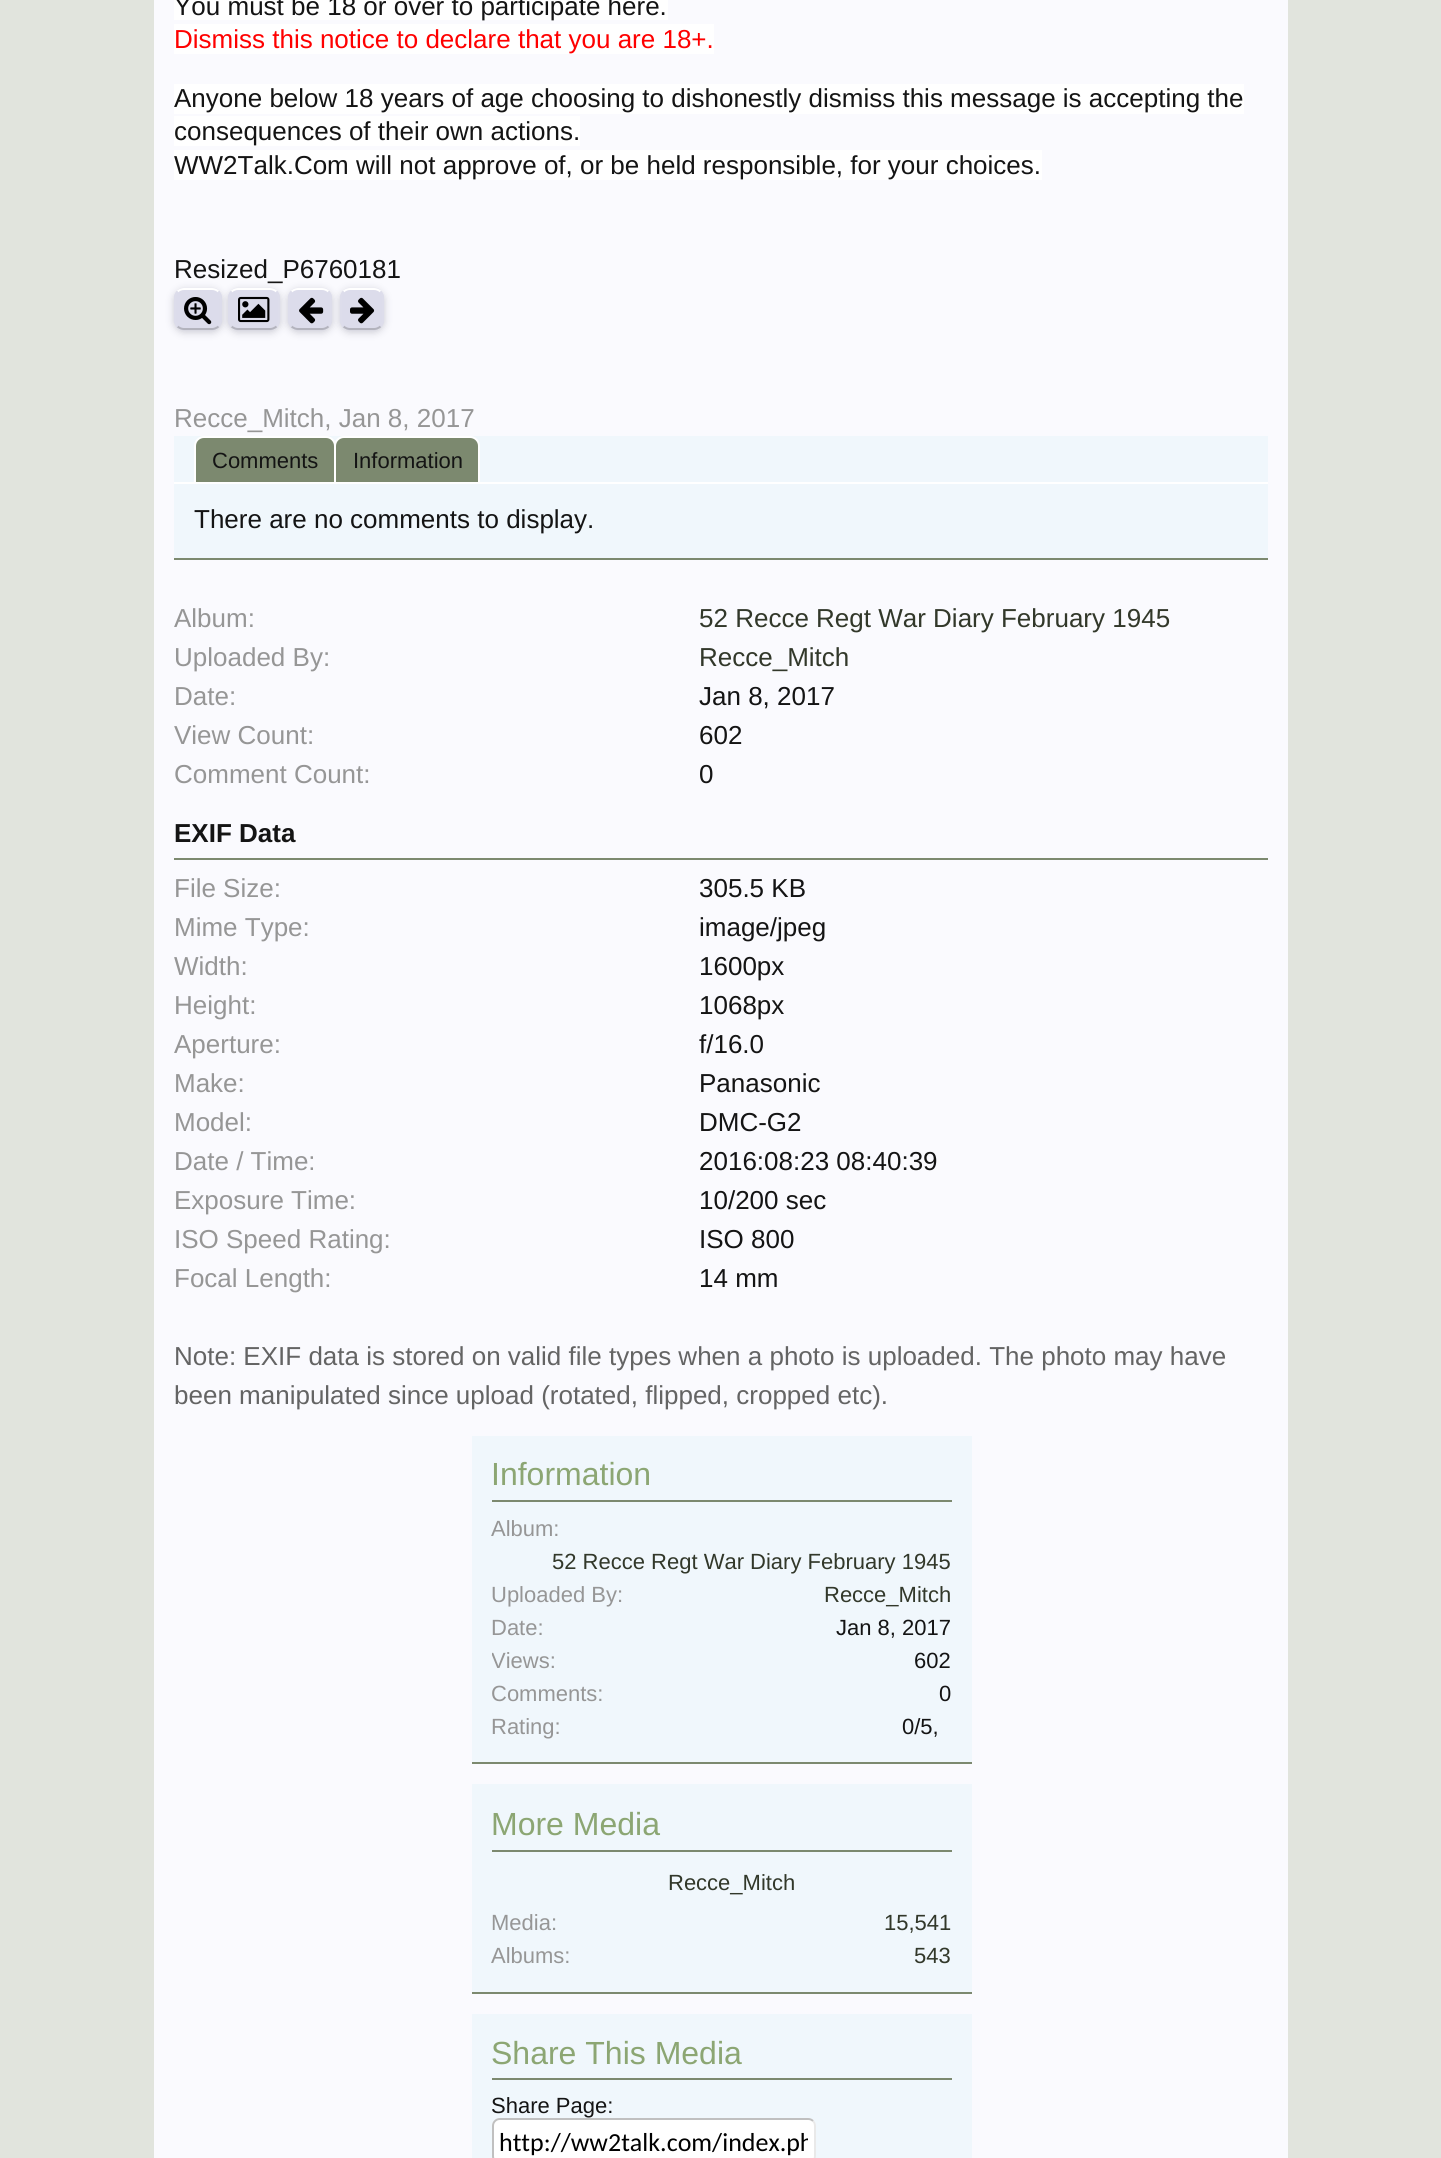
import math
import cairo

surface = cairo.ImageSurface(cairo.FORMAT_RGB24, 1441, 2158)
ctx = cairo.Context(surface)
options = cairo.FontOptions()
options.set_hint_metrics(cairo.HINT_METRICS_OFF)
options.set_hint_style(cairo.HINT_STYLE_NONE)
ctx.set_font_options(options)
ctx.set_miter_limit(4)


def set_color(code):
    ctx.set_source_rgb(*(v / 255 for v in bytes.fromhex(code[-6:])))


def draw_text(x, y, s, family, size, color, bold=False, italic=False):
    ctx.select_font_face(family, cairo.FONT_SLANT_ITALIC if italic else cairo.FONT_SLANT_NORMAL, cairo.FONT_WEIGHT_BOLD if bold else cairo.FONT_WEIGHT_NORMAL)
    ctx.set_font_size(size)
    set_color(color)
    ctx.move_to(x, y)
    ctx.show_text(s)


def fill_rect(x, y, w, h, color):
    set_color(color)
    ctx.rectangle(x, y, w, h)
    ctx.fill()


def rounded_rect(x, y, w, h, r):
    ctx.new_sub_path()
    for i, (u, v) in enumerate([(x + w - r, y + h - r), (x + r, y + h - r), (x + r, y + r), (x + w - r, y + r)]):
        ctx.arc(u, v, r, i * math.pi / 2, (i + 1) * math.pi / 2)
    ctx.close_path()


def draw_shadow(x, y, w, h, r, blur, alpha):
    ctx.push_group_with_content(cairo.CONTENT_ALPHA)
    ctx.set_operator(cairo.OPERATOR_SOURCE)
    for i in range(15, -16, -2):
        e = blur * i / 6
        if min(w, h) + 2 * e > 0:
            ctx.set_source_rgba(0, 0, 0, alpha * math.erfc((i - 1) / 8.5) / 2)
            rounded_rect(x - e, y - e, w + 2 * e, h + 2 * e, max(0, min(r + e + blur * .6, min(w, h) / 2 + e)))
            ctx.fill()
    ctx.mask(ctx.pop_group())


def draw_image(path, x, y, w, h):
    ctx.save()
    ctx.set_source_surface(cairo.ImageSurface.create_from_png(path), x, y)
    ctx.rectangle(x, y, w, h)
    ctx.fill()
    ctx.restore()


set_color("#e1e4dd")
ctx.paint()
fill_rect(154, 0, 1134, 2158, "#fafafe")
fill_rect(174, 0, 494, 20, "#ffffff")
draw_text(174, 15, "You must be 18 or over to participate here.", "Liberation Sans", 26, "#141414")
fill_rect(174, 24, 540, 30, "#ffffff")
draw_text(174, 48, "Dismiss this notice to declare that you are 18+.", "Liberation Sans", 26, "#ff0000")
fill_rect(174, 84, 1070, 30, "#ffffff")
draw_text(174, 107, "Anyone below 18 years of age choosing to dishonestly dismiss this message is accepting the", "Liberation Sans", 26, "#141414")
fill_rect(174, 116, 406, 30, "#ffffff")
draw_text(174, 140, "consequences of their own actions.", "Liberation Sans", 26, "#141414")
fill_rect(174, 150, 868, 30, "#ffffff")
draw_text(174, 174, "WW2Talk.Com will not approve of, or be held responsible, for your choices.", "Liberation Sans", 26, "#141414")
draw_text(174, 278, "Resized_P6760181", "Liberation Sans", 26, "#141414")
set_color("#c8c8d2")
draw_shadow(174, 290, 48, 42, 10, 4, 1)
set_color("#dcdceb")
rounded_rect(174, 288, 48, 42, 10)
ctx.fill()
ctx.new_path()
ctx.move_to(177.5, 291.5)
ctx.curve_to(179.5, 290, 181.5, 289, 184, 289)
ctx.line_to(212, 289)
ctx.curve_to(214.5, 289, 216.5, 290, 218.5, 291.5)
set_color("#ffffff")
ctx.stroke()
ctx.new_path()
ctx.move_to(218.5, 291.5)
ctx.curve_to(220, 293.5, 221, 295.5, 221, 298)
ctx.line_to(221, 320)
ctx.curve_to(221, 322.5, 220, 324.5, 218.5, 326.5)
set_color("#ddddeb")
ctx.stroke()
ctx.new_path()
ctx.move_to(218.5, 326.5)
ctx.curve_to(216.5, 328, 214.5, 329, 212, 329)
ctx.line_to(184, 329)
ctx.curve_to(181.5, 329, 179.5, 328, 177.5, 326.5)
set_color("#b3b3bd")
ctx.stroke()
ctx.new_path()
ctx.move_to(177.5, 326.5)
ctx.curve_to(176, 324.5, 175, 322.5, 175, 320)
ctx.line_to(175, 298)
ctx.curve_to(175, 295.5, 176, 293.5, 177.5, 291.5)
set_color("#ddddeb")
ctx.stroke()
draw_image("assets/img1.png", 184, 297, 28, 28)
set_color("#c8c8d2")
draw_shadow(228, 290, 52, 42, 10, 4, 1)
set_color("#dcdceb")
rounded_rect(228, 288, 52, 42, 10)
ctx.fill()
ctx.new_path()
ctx.move_to(231.5, 291.5)
ctx.curve_to(233.5, 290, 235.5, 289, 238, 289)
ctx.line_to(270, 289)
ctx.curve_to(272.5, 289, 274.5, 290, 276.5, 291.5)
set_color("#ffffff")
ctx.stroke()
ctx.new_path()
ctx.move_to(276.5, 291.5)
ctx.curve_to(278, 293.5, 279, 295.5, 279, 298)
ctx.line_to(279, 320)
ctx.curve_to(279, 322.5, 278, 324.5, 276.5, 326.5)
set_color("#ddddeb")
ctx.stroke()
ctx.new_path()
ctx.move_to(276.5, 326.5)
ctx.curve_to(274.5, 328, 272.5, 329, 270, 329)
ctx.line_to(238, 329)
ctx.curve_to(235.5, 329, 233.5, 328, 231.5, 326.5)
set_color("#b3b3bd")
ctx.stroke()
ctx.new_path()
ctx.move_to(231.5, 326.5)
ctx.curve_to(230, 324.5, 229, 322.5, 229, 320)
ctx.line_to(229, 298)
ctx.curve_to(229, 295.5, 230, 293.5, 231.5, 291.5)
set_color("#ddddeb")
ctx.stroke()
draw_image("assets/img2.png", 238, 296, 32, 27)
set_color("#c8c8d2")
draw_shadow(288, 290, 44, 42, 10, 4, 1)
set_color("#dcdceb")
rounded_rect(288, 288, 44, 42, 10)
ctx.fill()
ctx.new_path()
ctx.move_to(291.5, 291.5)
ctx.curve_to(293.5, 290, 295.5, 289, 298, 289)
ctx.line_to(322, 289)
ctx.curve_to(324.5, 289, 326.5, 290, 328.5, 291.5)
set_color("#ffffff")
ctx.stroke()
ctx.new_path()
ctx.move_to(328.5, 291.5)
ctx.curve_to(330, 293.5, 331, 295.5, 331, 298)
ctx.line_to(331, 320)
ctx.curve_to(331, 322.5, 330, 324.5, 328.5, 326.5)
set_color("#ddddeb")
ctx.stroke()
ctx.new_path()
ctx.move_to(328.5, 326.5)
ctx.curve_to(326.5, 328, 324.5, 329, 322, 329)
ctx.line_to(298, 329)
ctx.curve_to(295.5, 329, 293.5, 328, 291.5, 326.5)
set_color("#b3b3bd")
ctx.stroke()
ctx.new_path()
ctx.move_to(291.5, 326.5)
ctx.curve_to(290, 324.5, 289, 322.5, 289, 320)
ctx.line_to(289, 298)
ctx.curve_to(289, 295.5, 290, 293.5, 291.5, 291.5)
set_color("#ddddeb")
ctx.stroke()
draw_image("assets/img3.png", 299, 297, 25, 27)
set_color("#c8c8d2")
draw_shadow(340, 290, 44, 42, 10, 4, 1)
set_color("#dcdceb")
rounded_rect(340, 288, 44, 42, 10)
ctx.fill()
ctx.new_path()
ctx.move_to(343.5, 291.5)
ctx.curve_to(345.5, 290, 347.5, 289, 350, 289)
ctx.line_to(374, 289)
ctx.curve_to(376.5, 289, 378.5, 290, 380.5, 291.5)
set_color("#ffffff")
ctx.stroke()
ctx.new_path()
ctx.move_to(380.5, 291.5)
ctx.curve_to(382, 293.5, 383, 295.5, 383, 298)
ctx.line_to(383, 320)
ctx.curve_to(383, 322.5, 382, 324.5, 380.5, 326.5)
set_color("#ddddeb")
ctx.stroke()
ctx.new_path()
ctx.move_to(380.5, 326.5)
ctx.curve_to(378.5, 328, 376.5, 329, 374, 329)
ctx.line_to(350, 329)
ctx.curve_to(347.5, 329, 345.5, 328, 343.5, 326.5)
set_color("#b3b3bd")
ctx.stroke()
ctx.new_path()
ctx.move_to(343.5, 326.5)
ctx.curve_to(342, 324.5, 341, 322.5, 341, 320)
ctx.line_to(341, 298)
ctx.curve_to(341, 295.5, 342, 293.5, 343.5, 291.5)
set_color("#ddddeb")
ctx.stroke()
draw_image("assets/img4.png", 350, 297, 25, 27)
draw_text(174, 427, "Recce_Mitch, Jan 8, 2017", "Liberation Sans", 26, "#969696")
fill_rect(174, 436, 1094, 46, "#f0f7fc")
fill_rect(174, 482, 1094, 2, "#ffffff")
set_color("#7c896f")
ctx.new_path()
ctx.move_to(204, 437)
ctx.line_to(326, 437)
ctx.curve_to(331, 437, 335, 441, 335, 446)
ctx.line_to(335, 483)
ctx.line_to(195, 483)
ctx.line_to(195, 446)
ctx.curve_to(195, 441, 199, 437, 204, 437)
ctx.close_path()
ctx.fill_preserve()
set_color("#ffffff")
ctx.stroke()
draw_text(212, 468, "Comments", "Liberation Sans", 22, "#141414")
set_color("#7c896f")
ctx.new_path()
ctx.move_to(344, 437)
ctx.line_to(470, 437)
ctx.curve_to(475, 437, 479, 441, 479, 446)
ctx.line_to(479, 483)
ctx.line_to(335, 483)
ctx.line_to(335, 446)
ctx.curve_to(335, 441, 339, 437, 344, 437)
ctx.close_path()
ctx.fill_preserve()
set_color("#ffffff")
ctx.stroke()
draw_text(353, 468, "Information", "Liberation Sans", 22, "#141414")
fill_rect(174, 484, 1094, 74, "#f0f7fc")
fill_rect(174, 558, 1094, 2, "#7c896f")
draw_text(194, 528, "There are no comments to display.", "Liberation Sans", 26, "#141414")
draw_text(174, 627, "Album:", "Liberation Sans", 26, "#969696")
draw_text(699, 627, "52 Recce Regt War Diary February 1945", "Liberation Sans", 26, "#32382a")
draw_text(174, 666, "Uploaded By:", "Liberation Sans", 26, "#969696")
draw_text(699, 666, "Recce_Mitch", "Liberation Sans", 26, "#32382a")
draw_text(174, 705, "Date:", "Liberation Sans", 26, "#969696")
draw_text(699, 705, "Jan 8, 2017", "Liberation Sans", 26, "#141414")
draw_text(174, 744, "View Count:", "Liberation Sans", 26, "#969696")
draw_text(699, 744, "602", "Liberation Sans", 26, "#141414")
draw_text(174, 783, "Comment Count:", "Liberation Sans", 26, "#969696")
draw_text(699, 783, "0", "Liberation Sans", 26, "#141414")
fill_rect(174, 858, 1094, 2, "#7c896f")
draw_text(174, 842, "EXIF Data", "Liberation Sans", 26, "#141414", bold=True)
draw_text(174, 897, "File Size:", "Liberation Sans", 26, "#969696")
draw_text(699, 897, "305.5 KB", "Liberation Sans", 26, "#141414")
draw_text(174, 936, "Mime Type:", "Liberation Sans", 26, "#969696")
draw_text(699, 936, "image/jpeg", "Liberation Sans", 26, "#141414")
draw_text(174, 975, "Width:", "Liberation Sans", 26, "#969696")
draw_text(699, 975, "1600px", "Liberation Sans", 26, "#141414")
draw_text(174, 1014, "Height:", "Liberation Sans", 26, "#969696")
draw_text(699, 1014, "1068px", "Liberation Sans", 26, "#141414")
draw_text(174, 1053, "Aperture:", "Liberation Sans", 26, "#969696")
draw_text(699, 1053, "f/16.0", "Liberation Sans", 26, "#141414")
draw_text(174, 1092, "Make:", "Liberation Sans", 26, "#969696")
draw_text(699, 1092, "Panasonic", "Liberation Sans", 26, "#141414")
draw_text(174, 1131, "Model:", "Liberation Sans", 26, "#969696")
draw_text(699, 1131, "DMC-G2", "Liberation Sans", 26, "#141414")
draw_text(174, 1170, "Date / Time:", "Liberation Sans", 26, "#969696")
draw_text(699, 1170, "2016:08:23 08:40:39", "Liberation Sans", 26, "#141414")
draw_text(174, 1209, "Exposure Time:", "Liberation Sans", 26, "#969696")
draw_text(699, 1209, "10/200 sec", "Liberation Sans", 26, "#141414")
draw_text(174, 1248, "ISO Speed Rating:", "Liberation Sans", 26, "#969696")
draw_text(699, 1248, "ISO 800", "Liberation Sans", 26, "#141414")
draw_text(174, 1287, "Focal Length:", "Liberation Sans", 26, "#969696")
draw_text(699, 1287, "14 mm", "Liberation Sans", 26, "#141414")
draw_text(174, 1365, "Note: EXIF data is stored on valid file types when a photo is uploaded. The photo may have", "Liberation Sans", 26, "#646464")
draw_text(174, 1404, "been manipulated since upload (rotated, flipped, cropped etc).", "Liberation Sans", 26, "#646464")
fill_rect(472, 1436, 500, 326, "#f0f7fc")
fill_rect(472, 1762, 500, 2, "#7c896f")
fill_rect(492, 1500, 460, 2, "#7c896f")
draw_text(491, 1485, "Information", "Liberation Sans", 32, "#8ca673")
draw_text(491, 1536, "Album:", "Liberation Sans", 22, "#969696")
draw_text(552, 1569, "52 Recce Regt War Diary February 1945", "Liberation Sans", 22, "#32382a")
draw_text(491, 1602, "Uploaded By:", "Liberation Sans", 22, "#969696")
draw_text(824, 1602, "Recce_Mitch", "Liberation Sans", 22, "#32382a")
draw_text(491, 1635, "Date:", "Liberation Sans", 22, "#969696")
draw_text(836, 1635, "Jan 8, 2017", "Liberation Sans", 22, "#141414")
ctx.save()
ctx.rectangle(492, 1644, 460, 32)
ctx.clip()
draw_text(491, 1668, "Views:", "Liberation Sans", 22, "#969696")
ctx.restore()
draw_text(914, 1668, "602", "Liberation Sans", 22, "#141414")
draw_text(491, 1701, "Comments:", "Liberation Sans", 22, "#969696")
draw_text(939, 1701, "0", "Liberation Sans", 22, "#141414")
draw_text(491, 1734, "Rating:", "Liberation Sans", 22, "#969696")
draw_text(902, 1734, "0/5,", "Liberation Sans", 22, "#141414")
fill_rect(472, 1784, 500, 208, "#f0f7fc")
fill_rect(472, 1992, 500, 2, "#7c896f")
fill_rect(492, 1850, 460, 2, "#7c896f")
draw_text(491, 1835, "More Media", "Liberation Sans", 32, "#8ca673")
draw_text(668, 1890, "Recce_Mitch", "Liberation Sans", 22, "#32382a")
draw_text(491, 1930, "Media:", "Liberation Sans", 22, "#969696")
draw_text(884, 1930, "15,541", "Liberation Sans", 22, "#32382a")
draw_text(491, 1963, "Albums:", "Liberation Sans", 22, "#969696")
draw_text(914, 1963, "543", "Liberation Sans", 22, "#32382a")
fill_rect(472, 2014, 500, 144, "#f0f7fc")
fill_rect(492, 2078, 460, 2, "#7c896f")
draw_text(491, 2064, "Share This Media", "Liberation Sans", 32, "#8ca673")
draw_text(491, 2113, "Share Page:", "Liberation Sans", 22, "#141414")
set_color("#ffffff")
rounded_rect(492, 2118, 324, 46, 8)
ctx.fill()
ctx.new_path()
ctx.move_to(813, 2121)
ctx.curve_to(814.5, 2122.5, 815, 2124, 815, 2126)
ctx.line_to(815, 2156)
ctx.curve_to(815, 2158, 814.5, 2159.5, 813, 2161)
ctx.curve_to(811.5, 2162.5, 810, 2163, 808, 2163)
ctx.line_to(500, 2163)
ctx.curve_to(498, 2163, 496.5, 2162.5, 495, 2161)
set_color("#e9e9e9")
ctx.stroke()
ctx.new_path()
ctx.move_to(495, 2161)
ctx.curve_to(493.5, 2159.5, 493, 2158, 493, 2156)
ctx.line_to(493, 2126)
ctx.curve_to(493, 2124, 493.5, 2122.5, 495, 2121)
ctx.curve_to(496.5, 2119.5, 498, 2119, 500, 2119)
ctx.line_to(808, 2119)
ctx.curve_to(810, 2119, 811.5, 2119.5, 813, 2121)
set_color("#c0c0c0")
ctx.stroke()
ctx.save()
ctx.rectangle(500, 2126, 308, 30)
ctx.clip()
draw_text(499, 2151, "http://ww2talk.com/index.ph", "Carlito", 26, "#000000")
ctx.restore()
surface.write_to_png("output.png")
